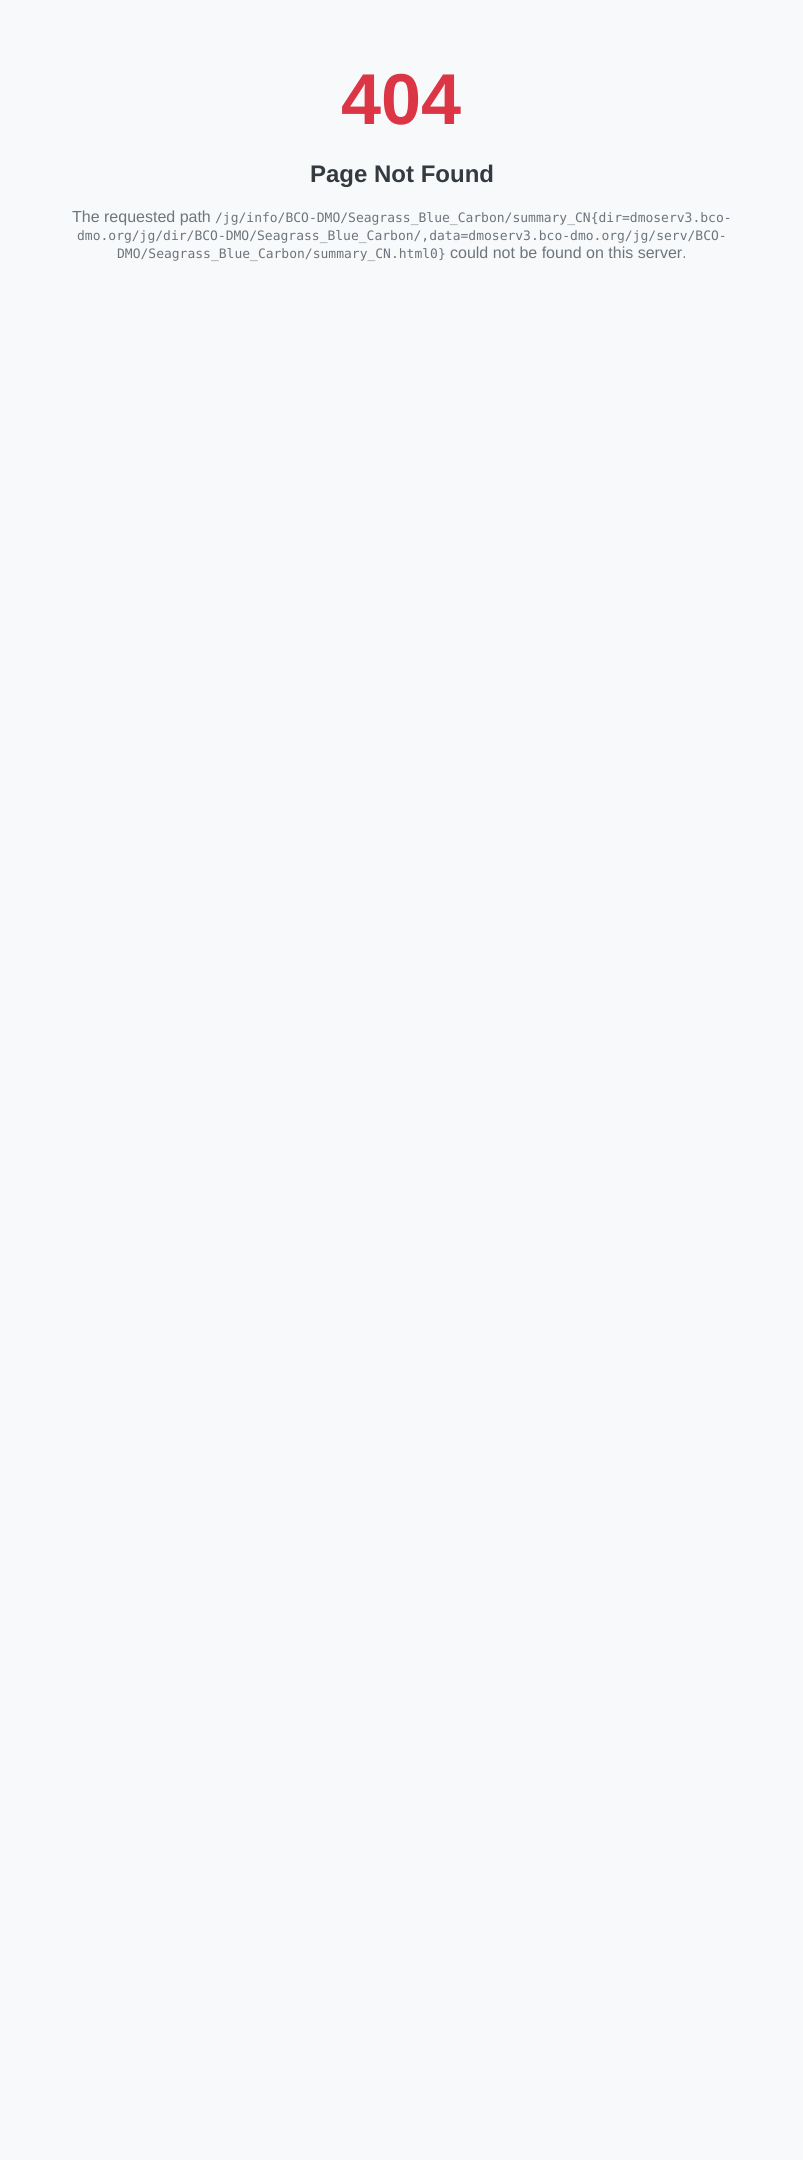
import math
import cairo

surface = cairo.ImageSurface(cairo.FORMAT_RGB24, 803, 2160)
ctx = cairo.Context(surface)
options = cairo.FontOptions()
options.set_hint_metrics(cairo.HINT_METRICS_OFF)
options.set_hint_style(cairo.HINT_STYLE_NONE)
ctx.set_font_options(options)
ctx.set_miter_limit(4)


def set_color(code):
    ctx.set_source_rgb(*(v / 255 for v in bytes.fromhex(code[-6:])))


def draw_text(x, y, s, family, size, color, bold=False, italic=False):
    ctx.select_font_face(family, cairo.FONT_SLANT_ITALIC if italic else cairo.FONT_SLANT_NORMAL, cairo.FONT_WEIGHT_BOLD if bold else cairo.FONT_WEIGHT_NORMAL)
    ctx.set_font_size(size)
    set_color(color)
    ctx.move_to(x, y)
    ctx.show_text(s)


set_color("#f8f9fa")
ctx.paint()
draw_text(341, 124, "404", "Liberation Sans", 72, "#dc3545", bold=True)
draw_text(310, 182, "Page Not Found", "Liberation Sans", 24, "#343a40", bold=True)
draw_text(72, 222, "The requested path", "Liberation Sans", 16, "#6c757d")
draw_text(215, 222, "/jg/info/BCO-DMO/Seagrass_Blue_Carbon/summary_CN{dir=dmoserv3.bco-", "DejaVu Sans Mono", 13, "#6c757d")
draw_text(77, 240, "dmo.org/jg/dir/BCO-DMO/Seagrass_Blue_Carbon/,data=dmoserv3.bco-dmo.org/jg/serv/BCO-", "DejaVu Sans Mono", 13, "#6c757d")
draw_text(117, 258, "DMO/Seagrass_Blue_Carbon/summary_CN.html0}", "DejaVu Sans Mono", 13, "#6c757d")
draw_text(450, 258, "could not be found on this server.", "Liberation Sans", 16, "#6c757d")
surface.write_to_png("output.png")
